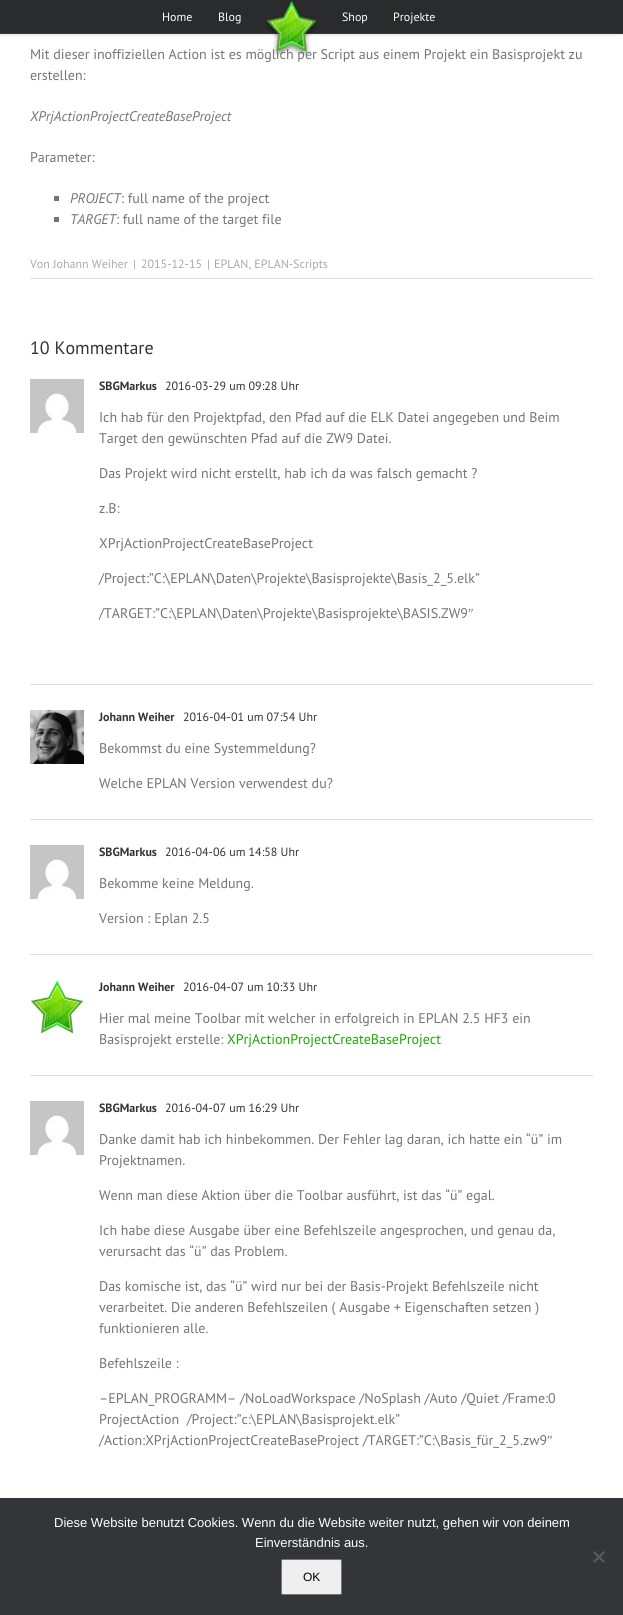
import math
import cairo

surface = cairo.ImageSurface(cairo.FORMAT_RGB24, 623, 1615)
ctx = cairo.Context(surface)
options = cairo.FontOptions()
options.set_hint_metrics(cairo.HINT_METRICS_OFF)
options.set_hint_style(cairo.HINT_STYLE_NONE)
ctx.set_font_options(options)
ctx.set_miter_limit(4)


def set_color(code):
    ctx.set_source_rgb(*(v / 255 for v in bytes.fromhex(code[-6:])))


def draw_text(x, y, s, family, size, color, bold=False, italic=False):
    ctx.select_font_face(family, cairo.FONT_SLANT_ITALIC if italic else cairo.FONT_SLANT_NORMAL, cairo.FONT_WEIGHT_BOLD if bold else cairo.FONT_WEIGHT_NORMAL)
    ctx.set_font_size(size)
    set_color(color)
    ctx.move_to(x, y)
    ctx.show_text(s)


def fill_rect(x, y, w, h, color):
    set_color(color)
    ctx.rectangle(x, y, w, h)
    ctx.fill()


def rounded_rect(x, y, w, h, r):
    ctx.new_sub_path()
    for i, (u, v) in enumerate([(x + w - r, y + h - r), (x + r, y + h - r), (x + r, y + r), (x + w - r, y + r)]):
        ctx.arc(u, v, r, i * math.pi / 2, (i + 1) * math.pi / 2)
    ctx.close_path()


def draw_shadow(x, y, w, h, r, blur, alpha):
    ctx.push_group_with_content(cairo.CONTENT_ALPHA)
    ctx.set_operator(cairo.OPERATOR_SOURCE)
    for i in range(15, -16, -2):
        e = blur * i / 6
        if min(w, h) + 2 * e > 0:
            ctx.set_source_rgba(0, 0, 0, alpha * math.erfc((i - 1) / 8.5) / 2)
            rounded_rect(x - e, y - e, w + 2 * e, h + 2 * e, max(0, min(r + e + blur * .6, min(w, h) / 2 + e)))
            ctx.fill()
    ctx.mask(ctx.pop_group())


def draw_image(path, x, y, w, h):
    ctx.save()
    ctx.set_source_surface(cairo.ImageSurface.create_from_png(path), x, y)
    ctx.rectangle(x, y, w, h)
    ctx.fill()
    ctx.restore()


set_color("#ffffff")
ctx.paint()
fill_rect(0, 0, 623, 33, "#363839")
fill_rect(0, 33, 623, 1, "#d2d3d4")
ctx.save()
ctx.rectangle(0, 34, 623, 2)
ctx.clip()
set_color("#000000")
draw_shadow(0, 1, 623, 34, 0, 1.5, 0.12)
ctx.restore()
ctx.set_source_rgba(0.161, 0.165, 0.169, 0.9)
ctx.rectangle(0, 0, 623, 34)
ctx.fill()
draw_text(162, 21, "Home", "PT Sans", 12, "#ffffff")
draw_text(218, 21, "Blog", "PT Sans", 12, "#ffffff")
draw_text(30, 59, "Mit dieser inoffiziellen Action ist es möglich per Script aus einem Projekt ein Basisprojekt zu", "PT Sans", 14, "#747474")
draw_image("assets/img1.png", 266, 1, 51, 54)
draw_text(342, 21, "Shop", "PT Sans", 12, "#ffffff")
draw_text(393, 21, "Projekte", "PT Sans", 12, "#ffffff")
draw_text(30, 80, "erstellen:", "PT Sans", 14, "#747474")
draw_text(30, 121, "XPrjActionProjectCreateBaseProject", "PT Sans", 14, "#747474", italic=True)
draw_text(30, 162, "Parameter:", "PT Sans", 14, "#747474")
fill_rect(54, 196, 5, 5, "#747474")
draw_text(70, 203, "PROJECT", "PT Sans", 14, "#747474", italic=True)
draw_text(121, 203, ": full name of the project", "PT Sans", 14, "#747474")
fill_rect(54, 217, 5, 5, "#747474")
draw_text(70, 224, "TARGET", "PT Sans", 14, "#747474", italic=True)
draw_text(116, 224, ": full name of the target file", "PT Sans", 14, "#747474")
fill_rect(30, 278, 563, 1, "#e0dede")
draw_text(30, 268, "Von Johann Weiher", "PT Sans", 12, "#a9a9a9")
draw_text(133, 268, "|", "PT Sans", 12, "#a9a9a9")
draw_text(141, 268, "2015-12-15", "PT Sans", 12, "#a9a9a9")
draw_text(207, 268, "|", "PT Sans", 12, "#a9a9a9")
draw_text(214, 268, "EPLAN, EPLAN-Scripts", "PT Sans", 12, "#a9a9a9")
draw_text(30, 354, "10 Kommentare", "PT Sans", 18, "#333333")
fill_rect(30, 684, 563, 1, "#e0dede")
draw_image("assets/img2.png", 30, 379, 54, 54)
draw_text(99, 390, "SBGMarkus", "PT Sans", 12, "#333333", bold=True)
draw_text(165, 390, "2016-03-29 um 09:28 Uhr", "PT Sans", 12, "#333333")
draw_text(99, 422, "Ich hab für den Projektpfad, den Pfad auf die ELK Datei angegeben und Beim", "PT Sans", 14, "#747474")
draw_text(99, 443, "Target den gewünschten Pfad auf die ZW9 Datei.", "PT Sans", 14, "#747474")
draw_text(99, 478, "Das Projekt wird nicht erstellt, hab ich da was falsch gemacht ?", "PT Sans", 14, "#747474")
draw_text(99, 513, "z.B:", "PT Sans", 14, "#747474")
draw_text(99, 548, "XPrjActionProjectCreateBaseProject", "PT Sans", 14, "#747474")
draw_text(99, 583, "/Project:”C:\\EPLAN\\Daten\\Projekte\\Basisprojekte\\Basis_2_5.elk”", "PT Sans", 14, "#747474")
draw_text(99, 618, "/TARGET:”C:\\EPLAN\\Daten\\Projekte\\Basisprojekte\\BASIS.ZW9", "PT Sans", 14, "#747474")
draw_text(468, 618, "″", "Liberation Serif", 14, "#747474")
fill_rect(30, 819, 563, 1, "#e0dede")
draw_image("assets/img3.png", 30, 710, 54, 54)
draw_text(99, 721, "Johann Weiher", "PT Sans", 12, "#333333", bold=True)
draw_text(183, 721, "2016-04-01 um 07:54 Uhr", "PT Sans", 12, "#333333")
draw_text(99, 753, "Bekommst du eine Systemmeldung?", "PT Sans", 14, "#747474")
draw_text(99, 788, "Welche EPLAN Version verwendest du?", "PT Sans", 14, "#747474")
fill_rect(30, 954, 563, 1, "#e0dede")
draw_image("assets/img2.png", 30, 845, 54, 54)
draw_text(99, 856, "SBGMarkus", "PT Sans", 12, "#333333", bold=True)
draw_text(165, 856, "2016-04-06 um 14:58 Uhr", "PT Sans", 12, "#333333")
draw_text(99, 888, "Bekomme keine Meldung.", "PT Sans", 14, "#747474")
draw_text(99, 923, "Version : Eplan 2.5", "PT Sans", 14, "#747474")
fill_rect(30, 1075, 563, 1, "#e0dede")
draw_image("assets/img4.png", 31, 980, 53, 54)
draw_text(99, 991, "Johann Weiher", "PT Sans", 12, "#333333", bold=True)
draw_text(183, 991, "2016-04-07 um 10:33 Uhr", "PT Sans", 12, "#333333")
draw_text(99, 1023, "Hier mal meine Toolbar mit welcher in erfolgreich in EPLAN 2.5 HF3 ein", "PT Sans", 14, "#747474")
draw_text(99, 1044, "Basisprojekt erstelle:", "PT Sans", 14, "#747474")
draw_text(227, 1044, "XPrjActionProjectCreateBaseProject", "PT Sans", 14, "#1ba800")
draw_image("assets/img2.png", 30, 1101, 54, 54)
draw_text(99, 1112, "SBGMarkus", "PT Sans", 12, "#333333", bold=True)
draw_text(165, 1112, "2016-04-07 um 16:29 Uhr", "PT Sans", 12, "#333333")
draw_text(99, 1144, "Danke damit hab ich hinbekommen. Der Fehler lag daran, ich hatte ein “ü” im", "PT Sans", 14, "#747474")
draw_text(99, 1165, "Projektnamen.", "PT Sans", 14, "#747474")
draw_text(99, 1200, "Wenn man diese Aktion über die Toolbar ausführt, ist das “ü” egal.", "PT Sans", 14, "#747474")
draw_text(99, 1235, "Ich habe diese Ausgabe über eine Befehlszeile angesprochen, und genau da,", "PT Sans", 14, "#747474")
draw_text(99, 1256, "verursacht das “ü” das Problem.", "PT Sans", 14, "#747474")
draw_text(99, 1291, "Das komische ist, das “ü” wird nur bei der Basis-Projekt Befehlszeile nicht", "PT Sans", 14, "#747474")
draw_text(99, 1312, "verarbeitet. Die anderen Befehlszeilen ( Ausgabe + Eigenschaften setzen )", "PT Sans", 14, "#747474")
draw_text(99, 1333, "funktionieren alle.", "PT Sans", 14, "#747474")
draw_text(99, 1368, "Befehlszeile :", "PT Sans", 14, "#747474")
draw_text(99, 1403, "–EPLAN_PROGRAMM– /NoLoadWorkspace /NoSplash /Auto /Quiet /Frame:0", "PT Sans", 14, "#747474")
draw_text(99, 1424, "ProjectAction  /Project:”c:\\EPLAN\\Basisprojekt.elk”", "PT Sans", 14, "#747474")
draw_text(99, 1445, "/Action:XPrjActionProjectCreateBaseProject /TARGET:”C:\\Basis_für_2_5.zw9", "PT Sans", 14, "#747474")
draw_text(547, 1445, "″", "Liberation Serif", 14, "#747474")
fill_rect(0, 1498, 623, 117, "#343538")
draw_text(54, 1527, "Diese Website benutzt Cookies. Wenn du die Website weiter nutzt, gehen wir von deinem", "Liberation Sans", 13, "#ffffff")
draw_text(255, 1547, "Einverständnis aus.", "Liberation Sans", 13, "#ffffff")
set_color("#5a5b5c")
ctx.new_path()
ctx.move_to(603.5, 1551)
ctx.line_to(605, 1552.5)
ctx.line_to(594.5, 1563)
ctx.line_to(593, 1561.5)
ctx.close_path()
ctx.fill()
ctx.new_path()
ctx.move_to(593, 1552.5)
ctx.line_to(594.5, 1551)
ctx.line_to(605, 1561.5)
ctx.line_to(603.5, 1563)
ctx.close_path()
ctx.fill()
set_color("#efefef")
rounded_rect(281.5, 1559.5, 60, 35, 1.5)
ctx.fill_preserve()
set_color("#767676")
ctx.set_line_width(1)
ctx.stroke()
draw_text(303, 1581, "OK", "Liberation Sans", 12, "#000000")
surface.write_to_png("output.png")
